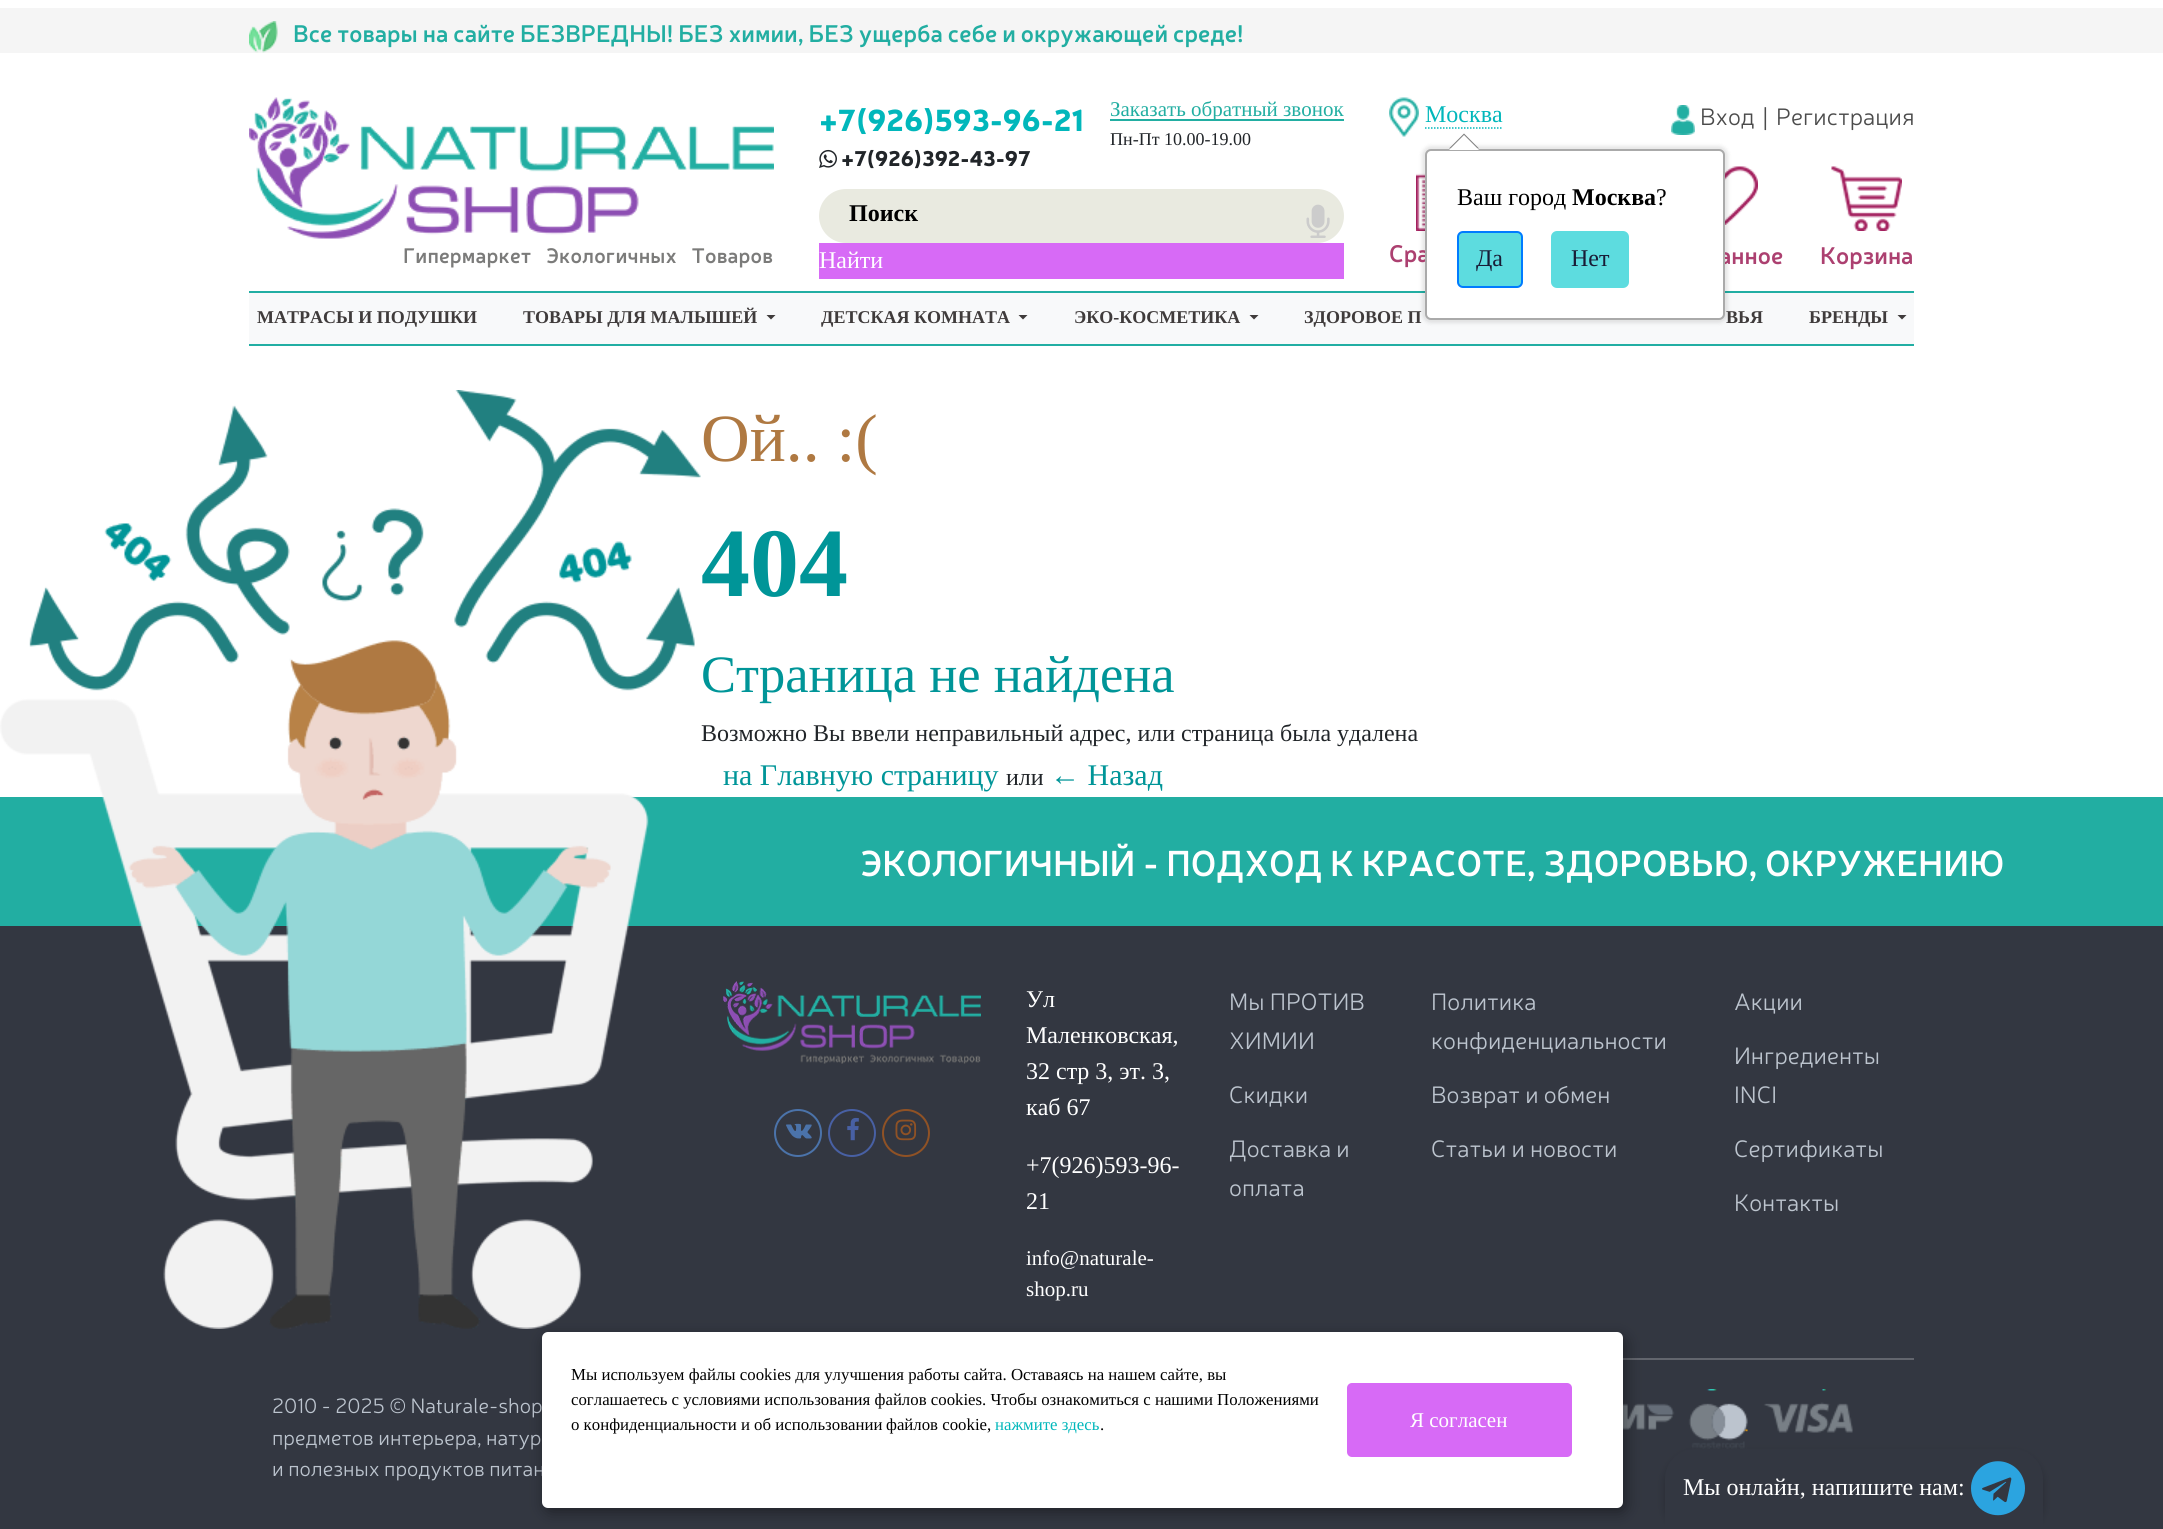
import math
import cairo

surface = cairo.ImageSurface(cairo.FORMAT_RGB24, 2163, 1529)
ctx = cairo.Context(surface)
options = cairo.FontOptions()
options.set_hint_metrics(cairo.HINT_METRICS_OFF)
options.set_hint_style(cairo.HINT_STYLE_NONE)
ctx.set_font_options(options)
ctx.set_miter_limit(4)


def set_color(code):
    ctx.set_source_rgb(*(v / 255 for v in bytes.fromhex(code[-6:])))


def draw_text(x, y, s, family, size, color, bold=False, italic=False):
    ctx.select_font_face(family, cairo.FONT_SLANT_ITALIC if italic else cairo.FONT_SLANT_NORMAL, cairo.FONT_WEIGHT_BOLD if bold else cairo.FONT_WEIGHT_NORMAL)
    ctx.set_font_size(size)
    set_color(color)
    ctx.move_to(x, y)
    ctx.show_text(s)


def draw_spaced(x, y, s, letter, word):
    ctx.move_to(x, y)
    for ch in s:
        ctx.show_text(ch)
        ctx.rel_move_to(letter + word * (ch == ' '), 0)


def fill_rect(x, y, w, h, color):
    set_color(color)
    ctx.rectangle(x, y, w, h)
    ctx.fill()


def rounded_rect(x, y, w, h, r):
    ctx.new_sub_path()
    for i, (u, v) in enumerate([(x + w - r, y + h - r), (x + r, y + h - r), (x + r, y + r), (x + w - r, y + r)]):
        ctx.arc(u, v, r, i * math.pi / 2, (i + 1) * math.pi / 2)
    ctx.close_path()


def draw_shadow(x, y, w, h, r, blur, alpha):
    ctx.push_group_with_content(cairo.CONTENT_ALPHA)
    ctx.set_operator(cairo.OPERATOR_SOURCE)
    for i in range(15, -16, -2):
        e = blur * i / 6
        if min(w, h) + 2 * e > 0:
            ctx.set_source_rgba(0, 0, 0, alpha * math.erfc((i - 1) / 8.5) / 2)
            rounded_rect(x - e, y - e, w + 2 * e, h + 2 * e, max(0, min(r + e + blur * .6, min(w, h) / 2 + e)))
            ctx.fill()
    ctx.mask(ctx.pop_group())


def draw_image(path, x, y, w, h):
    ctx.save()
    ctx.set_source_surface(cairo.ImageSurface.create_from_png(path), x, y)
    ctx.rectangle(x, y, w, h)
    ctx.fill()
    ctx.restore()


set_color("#ffffff")
ctx.paint()
fill_rect(0, 8, 2163, 45, "#f5f5f5")
draw_image("assets/img1.png", 249, 21, 29, 32)
draw_text(293, 42, "Все товары на сайте БЕЗВРЕДНЫ! БЕЗ химии, БЕЗ ущерба себе и окружающей среде!", "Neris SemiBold", 24, "#22aea2")
draw_image("assets/img2.png", 249, 97, 525, 142)
ctx.set_font_size(21)
set_color("#7b7b7a")
draw_spaced(403, 263, "Гипермаркет Экологичных Товаров", 0.15, 10)
draw_text(819, 131, "+7(926)593-96-21", "Neris Black", 30, "#01b7bb")
draw_image("assets/img3.png", 819, 149, 18, 19)
draw_text(841, 166, "+7(926)392-43-97", "Neris Black", 21, "#212529")
fill_rect(1110, 119, 234, 2, "#22aea2")
draw_text(1110, 116, "Заказать обратный звонок", "Liberation Serif", 21, "#22aea2")
draw_text(1110, 145, "Пн-Пт 10.00-19.00", "Liberation Serif", 18, "#212529")
set_color("#e9eae0")
rounded_rect(819, 189, 525, 54, 27)
ctx.fill()
draw_text(849, 221, "Поиск", "Liberation Serif", 24, "#000000", bold=True)
draw_image("assets/img4.png", 1306, 204, 24, 34)
fill_rect(819, 243, 525, 36, "#d76af6")
draw_text(819, 268, "Найти", "Liberation Serif", 24, "#ffffff")
draw_image("assets/img5.png", 1389, 97, 30, 40)
draw_text(1425, 122, "Москва", "Liberation Serif", 24, "#01b7bb")
ctx.new_path()
ctx.move_to(1425, 128)
ctx.line_to(1503, 128)
ctx.set_line_width(1.5)
ctx.set_dash([1.5, 1.5])
ctx.stroke()
draw_image("assets/img7.png", 1416, 173, 9, 58)
draw_image("assets/img8.png", 1725, 166, 33, 59)
fill_rect(249, 293, 1665, 51, "#f8f9fa")
fill_rect(249, 291, 1665, 2, "#22aea3")
set_color("#000000")
draw_shadow(1422, 146, 306, 177, 9, 2, 0.1)
draw_text(1389, 262, "Сра", "Neris SemiBold", 24, "#ac4070")
draw_text(1719, 264, "анное", "Neris SemiBold", 24, "#ac4070")
set_color("#ffffff")
rounded_rect(1426, 150, 298, 169, 5)
ctx.fill_preserve()
set_color("#aaaaaa")
ctx.set_line_width(2)
ctx.set_dash([])
ctx.stroke()
set_color("#808080")
ctx.new_path()
ctx.move_to(1479, 148.5)
ctx.line_to(1449, 148.5)
ctx.line_to(1464, 133.5)
ctx.close_path()
ctx.fill()
set_color("#ffffff")
ctx.new_path()
ctx.move_to(1479, 150)
ctx.line_to(1449, 150)
ctx.line_to(1464, 135)
ctx.close_path()
ctx.fill()
draw_text(1457, 205, "Ваш город", "Liberation Serif", 24, "#000000")
draw_text(1572, 205, "Москва", "Liberation Serif", 24, "#000000", bold=True)
draw_text(1656, 205, "?", "Liberation Serif", 24, "#000000")
set_color("#5ddcdf")
rounded_rect(1458, 232, 64, 55, 5)
ctx.fill_preserve()
set_color("#007bff")
ctx.stroke()
draw_text(1476, 266, "Да", "Liberation Serif", 24, "#191c36")
set_color("#5ddcdf")
rounded_rect(1551, 231, 78, 57, 6)
ctx.fill()
draw_text(1571, 266, "Нет", "Liberation Serif", 24, "#191c36")
draw_image("assets/img6.png", 1671, 105, 24, 30)
draw_text(1700, 125, "Вход", "Neris Light", 24, "#4b4b4b")
draw_text(1762, 125, "|", "Neris Light", 24, "#4b4b4b")
draw_text(1776, 125, "Регистрация", "Neris Light", 24, "#4b4b4b")
draw_image("assets/img9.png", 1831, 166, 71, 65)
draw_text(1820, 264, "Корзина", "Neris SemiBold", 24, "#ac4070")
fill_rect(249, 344, 1665, 2, "#22aea3")
draw_text(257, 323, "МАТРАСЫ И ПОДУШКИ", "Liberation Serif", 18, "#3f3b3b", bold=True)
draw_text(523, 323, "ТОВАРЫ ДЛЯ МАЛЫШЕЙ", "Liberation Serif", 18, "#3f3b3b", bold=True)
ctx.new_path()
ctx.move_to(766.5, 315)
ctx.line_to(775.5, 315)
ctx.line_to(771, 319.5)
ctx.close_path()
ctx.fill()
draw_text(821, 323, "ДЕТСКАЯ КОМНАТА", "Liberation Serif", 18, "#3f3b3b", bold=True)
ctx.new_path()
ctx.move_to(1018.5, 315)
ctx.line_to(1027.5, 315)
ctx.line_to(1023, 319.5)
ctx.close_path()
ctx.fill()
draw_text(1074, 323, "ЭКО-КОСМЕТИКА", "Liberation Serif", 18, "#3f3b3b", bold=True)
ctx.new_path()
ctx.move_to(1249.5, 315)
ctx.line_to(1258.5, 315)
ctx.line_to(1254, 319.5)
ctx.close_path()
ctx.fill()
draw_text(1304, 323, "ЗДОРОВОЕ П", "Liberation Serif", 18, "#3f3b3b", bold=True)
draw_text(1726, 323, "ВЬЯ", "Liberation Serif", 18, "#3f3b3b", bold=True)
draw_text(1809, 323, "БРЕНДЫ", "Liberation Serif", 18, "#3f3b3b", bold=True)
ctx.new_path()
ctx.move_to(1897.5, 315)
ctx.line_to(1906.5, 315)
ctx.line_to(1902, 319.5)
ctx.close_path()
ctx.fill()
fill_rect(0, 797, 2163, 129, "#22aea2")
fill_rect(0, 926, 2163, 603, "#333741")
draw_image("assets/img10.png", 0, 390, 701, 939)
draw_text(701, 461, "Ой.. :(", "Liberation Serif", 67.5, "#af7942")
draw_text(701, 596, "404", "Liberation Serif", 98, "#009598", bold=True)
draw_text(701, 692, "Страница не найдена", "Liberation Serif", 52.5, "#009598")
draw_text(701, 741, "Возможно Вы ввели неправильный адрес, или страница была удалена", "Liberation Serif", 24, "#212529")
draw_text(723, 785, "на Главную страницу", "Liberation Serif", 30, "#009598")
draw_text(1006, 785, "или", "Liberation Serif", 24, "#212529")
draw_text(1050, 785, "← Назад", "Liberation Serif", 30, "#009598")
draw_text(860, 876, "ЭКОЛОГИЧНЫЙ - ПОДХОД К КРАСОТЕ, ЗДОРОВЬЮ, ОКРУЖЕНИЮ", "Neris SemiBold", 36, "#ffffff")
fill_rect(1623, 1358, 291, 2, "#62656d")
draw_image("assets/img11.png", 723, 981, 258, 83)
ctx.arc(798, 1133, 23, 0, 2 * math.pi)
set_color("#4b73aa")
ctx.stroke()
draw_image("assets/img12.png", 786, 1123, 26, 16)
ctx.arc(852, 1133, 23, 0, 2 * math.pi)
set_color("#4860a4")
ctx.stroke()
draw_image("assets/img13.png", 847, 1117, 12, 24)
ctx.arc(906, 1133, 23, 0, 2 * math.pi)
set_color("#905225")
ctx.stroke()
draw_image("assets/img14.png", 895, 1119, 22, 22)
draw_text(1026, 1007, "Ул", "Liberation Serif", 24, "#ffffff")
draw_text(1026, 1043, "Маленковская,", "Liberation Serif", 24, "#ffffff")
draw_text(1026, 1079, "32 стр 3, эт. 3,", "Liberation Serif", 24, "#ffffff")
draw_text(1026, 1115, "каб 67", "Liberation Serif", 24, "#ffffff")
draw_text(1026, 1173, "+7(926)593-96-", "Liberation Serif", 24, "#ffffff")
draw_text(1026, 1209, "21", "Liberation Serif", 24, "#ffffff")
draw_text(1026, 1265, "info@naturale-", "Liberation Serif", 21, "#ffffff")
draw_text(1026, 1296, "shop.ru", "Liberation Serif", 21, "#ffffff")
draw_text(1229, 1010, "Мы ПРОТИВ", "Neris Light", 24, "#bcc4ce")
draw_text(1229, 1049, "ХИМИИ", "Neris Light", 24, "#bcc4ce")
draw_text(1229, 1103, "Скидки", "Neris Light", 24, "#bcc4ce")
draw_text(1229, 1157, "Доставка и", "Neris Light", 24, "#bcc4ce")
draw_text(1229, 1196, "оплата", "Neris Light", 24, "#bcc4ce")
draw_text(1431, 1010, "Политика", "Neris Light", 24, "#bcc4ce")
draw_text(1431, 1049, "конфиденциальности", "Neris Light", 24, "#bcc4ce")
draw_text(1431, 1103, "Возврат и обмен", "Neris Light", 24, "#bcc4ce")
draw_text(1431, 1157, "Cтатьи и новости", "Neris Light", 24, "#bcc4ce")
draw_text(1734, 1010, "Акции", "Neris Light", 24, "#bcc4ce")
draw_text(1734, 1064, "Ингредиенты", "Neris Light", 24, "#bcc4ce")
draw_text(1734, 1103, "INCI", "Neris Light", 24, "#bcc4ce")
draw_text(1734, 1157, "Сертификаты", "Neris Light", 24, "#bcc4ce")
draw_text(1734, 1211, "Контакты", "Neris Light", 24, "#bcc4ce")
draw_text(272, 1413, "2010 - 2025 © Naturale-shop", "Neris Light", 21, "#bcc4ce")
draw_text(272, 1445, "предметов интерьера, натур", "Neris Light", 21, "#bcc4ce")
draw_text(272, 1476, "и полезных продуктов питан", "Neris Light", 21, "#bcc4ce")
draw_image("assets/img15.png", 1623, 1389, 230, 60)
set_color("#000000")
draw_shadow(545, 1337, 1081, 175, 6, 7.5, 0.4)
set_color("#ffffff")
rounded_rect(542, 1332, 1081, 176, 6)
ctx.fill()
draw_text(571, 1380, "Мы используем файлы cookies для улучшения работы сайта. Оставаясь на нашем сайте, вы", "Liberation Serif", 16.8, "#000000")
draw_text(571, 1405, "соглашаетесь с условиями использования файлов cookies. Чтобы ознакомиться с нашими Положениями", "Liberation Serif", 16.8, "#000000")
draw_text(571, 1430, "о конфиденциальности и об использовании", "Liberation Serif", 16.8, "#000000")
draw_text(886, 1430, "файлов cookie,", "Liberation Serif", 16.8, "#000000")
draw_text(995, 1430, "нажмите здесь", "Liberation Serif", 16.8, "#01b7bb")
draw_text(1100, 1430, ".", "Liberation Serif", 16.8, "#000000")
set_color("#d76af6")
rounded_rect(1347, 1383, 225, 74, 5)
ctx.fill()
draw_text(1410, 1427, "Я согласен", "Liberation Serif", 21, "#ffffff")
set_color("#000000")
draw_shadow(1665, 1454, 378, 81, 30, 4.5, 0.23)
set_color("#333741")
ctx.new_path()
ctx.move_to(1695, 1449)
ctx.line_to(2013, 1449)
ctx.curve_to(2029.5, 1449, 2043, 1462.5, 2043, 1479)
ctx.line_to(2043, 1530)
ctx.line_to(1665, 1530)
ctx.line_to(1665, 1479)
ctx.curve_to(1665, 1462.5, 1678.5, 1449, 1695, 1449)
ctx.close_path()
ctx.fill()
draw_text(1683, 1495, "Мы онлайн, напишите нам:", "Liberation Serif", 24, "#ffffff")
draw_image("assets/img16.png", 1971, 1461, 54, 55)
surface.write_to_png("output.png")
